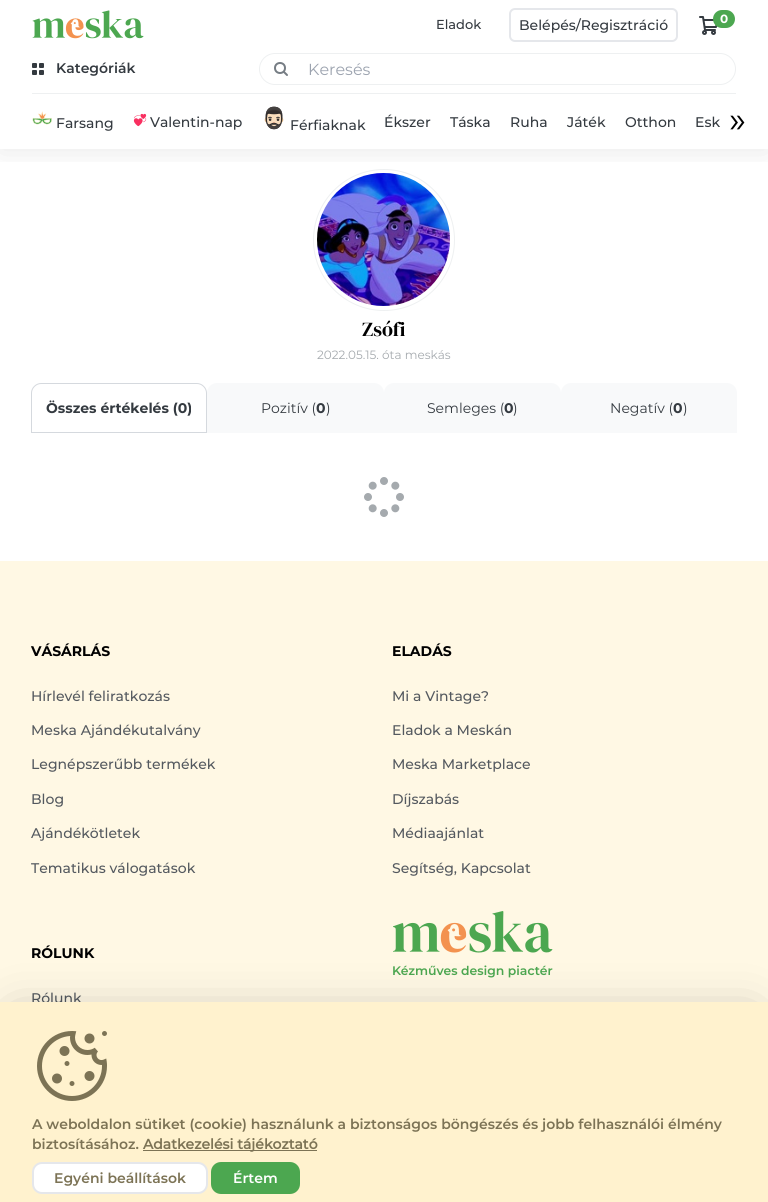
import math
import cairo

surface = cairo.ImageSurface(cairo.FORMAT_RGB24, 768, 1202)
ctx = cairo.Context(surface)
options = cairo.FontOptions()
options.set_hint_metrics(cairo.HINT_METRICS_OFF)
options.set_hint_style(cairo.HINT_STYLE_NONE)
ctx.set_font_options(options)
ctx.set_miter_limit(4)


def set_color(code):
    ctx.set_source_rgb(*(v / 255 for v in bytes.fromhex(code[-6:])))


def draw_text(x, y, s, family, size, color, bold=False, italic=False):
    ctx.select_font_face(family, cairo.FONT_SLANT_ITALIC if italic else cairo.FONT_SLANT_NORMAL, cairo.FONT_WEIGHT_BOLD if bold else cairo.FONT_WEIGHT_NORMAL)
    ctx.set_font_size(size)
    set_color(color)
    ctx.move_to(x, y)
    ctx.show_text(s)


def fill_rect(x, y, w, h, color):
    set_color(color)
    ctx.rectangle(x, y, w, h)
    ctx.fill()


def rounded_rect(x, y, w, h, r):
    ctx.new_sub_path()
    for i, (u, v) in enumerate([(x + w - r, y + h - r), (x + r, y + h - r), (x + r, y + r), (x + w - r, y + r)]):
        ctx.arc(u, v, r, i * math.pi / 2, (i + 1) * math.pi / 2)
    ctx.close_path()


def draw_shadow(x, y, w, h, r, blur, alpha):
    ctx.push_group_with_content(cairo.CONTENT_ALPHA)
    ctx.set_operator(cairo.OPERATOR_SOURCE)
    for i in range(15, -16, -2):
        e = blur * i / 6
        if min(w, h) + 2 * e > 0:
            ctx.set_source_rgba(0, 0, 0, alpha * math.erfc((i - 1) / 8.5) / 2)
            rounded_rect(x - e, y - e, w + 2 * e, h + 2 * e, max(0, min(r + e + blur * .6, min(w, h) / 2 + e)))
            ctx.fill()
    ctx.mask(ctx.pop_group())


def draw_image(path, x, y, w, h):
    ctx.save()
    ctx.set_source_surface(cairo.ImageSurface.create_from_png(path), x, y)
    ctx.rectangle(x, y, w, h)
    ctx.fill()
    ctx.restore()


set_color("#ffffff")
ctx.paint()
ctx.arc(384, 240, 70.5, 0, 2 * math.pi)
set_color("#eef0f1")
ctx.set_line_width(1)
ctx.stroke()
draw_image("assets/img7.png", 317, 173, 133, 133)
ctx.save()
ctx.rectangle(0, 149, 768, 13)
ctx.clip()
set_color("#000000")
draw_shadow(0, 0, 768, 149, 0, 15, 0.1)
ctx.restore()
draw_image("assets/img1.png", 32, 10, 112, 29)
draw_text(436, 29, "Eladok", "Montserrat Medium", 13, "#343a40")
rounded_rect(510, 9, 167, 32, 5)
set_color("#e5e7eb")
ctx.set_line_width(2)
ctx.stroke()
draw_text(519, 30, "Belépés/Regisztráció", "Montserrat Medium", 14, "#343a40")
draw_image("assets/img2.png", 699, 16, 19, 19)
set_color("#4ca750")
rounded_rect(713, 10, 22, 18, 9)
ctx.fill()
draw_text(720, 23, "0", "Montserrat", 12, "#ffffff", bold=True)
draw_image("assets/img3.png", 32, 63, 12, 12)
draw_text(56, 73, "Kategóriák", "Montserrat SemiBold", 14, "#343a40")
rounded_rect(259.5, 53.5, 476, 31, 15.5)
set_color("#eef0f1")
ctx.set_line_width(1)
ctx.stroke()
ctx.arc(280, 68, 5, 0, 2 * math.pi)
set_color("#767d84")
ctx.set_line_width(2)
ctx.stroke()
ctx.new_path()
ctx.move_to(284, 72)
ctx.line_to(287, 75)
ctx.set_line_cap(cairo.LINE_CAP_ROUND)
ctx.stroke()
draw_text(308, 75, "Keresés", "Montserrat", 16, "#9ca3af")
fill_rect(32, 93, 704, 1, "#eef0f1")
draw_image("assets/img4.png", 32, 111, 20, 14)
draw_text(56, 128, "Farsang", "Montserrat Medium", 14, "#343a40")
draw_image("assets/img5.png", 133, 113, 14, 14)
draw_text(150, 127, "Valentin-nap", "Montserrat Medium", 14, "#343a40")
draw_image("assets/img6.png", 264, 106, 20, 24)
draw_text(290, 130, "Férfiaknak", "Montserrat Medium", 14, "#343a40")
draw_text(384, 127, "Ékszer", "Montserrat Medium", 14, "#343a40")
draw_text(450, 127, "Táska", "Montserrat Medium", 14, "#343a40")
draw_text(510, 127, "Ruha", "Montserrat Medium", 14, "#343a40")
draw_text(567, 127, "Játék", "Montserrat Medium", 14, "#343a40")
draw_text(625, 127, "Otthon", "Montserrat Medium", 14, "#343a40")
draw_text(695, 127, "Esk", "Montserrat Medium", 14, "#343a40")
draw_text(729, 132, "»", "Montserrat", 36, "#000000")
draw_text(362, 336, "Zsófi", "DM Serif Display", 20, "#000000")
draw_text(317, 359, "2022.05.15. óta meskás", "Montserrat", 12, "#a5aaae")
ctx.new_path()
ctx.move_to(41, 383.5)
ctx.line_to(197, 383.5)
ctx.curve_to(202, 383.5, 206.5, 388, 206.5, 393)
ctx.line_to(206.5, 432.5)
ctx.line_to(31.5, 432.5)
ctx.line_to(31.5, 393)
ctx.curve_to(31.5, 388, 36, 383.5, 41, 383.5)
ctx.close_path()
set_color("#d5d9de")
ctx.set_line_width(1)
ctx.set_line_cap(cairo.LINE_CAP_BUTT)
ctx.stroke()
draw_text(46, 413, "Összes értékelés (0)", "Montserrat", 14, "#343a40", bold=True)
set_color("#f8f9fa")
ctx.new_path()
ctx.move_to(217, 383)
ctx.line_to(374, 383)
ctx.curve_to(379.5, 383, 384, 387.5, 384, 393)
ctx.line_to(384, 433)
ctx.line_to(207, 433)
ctx.line_to(207, 393)
ctx.curve_to(207, 387.5, 211.5, 383, 217, 383)
ctx.close_path()
ctx.fill()
draw_text(261, 413, "Pozitív (", "Montserrat", 14, "#343a40")
draw_text(316, 413, "0", "Montserrat", 14, "#343a40", bold=True)
draw_text(326, 413, ")", "Montserrat", 14, "#343a40")
set_color("#f8f9fa")
ctx.new_path()
ctx.move_to(394, 383)
ctx.line_to(551, 383)
ctx.curve_to(556.5, 383, 561, 387.5, 561, 393)
ctx.line_to(561, 433)
ctx.line_to(384, 433)
ctx.line_to(384, 393)
ctx.curve_to(384, 387.5, 388.5, 383, 394, 383)
ctx.close_path()
ctx.fill()
draw_text(427, 413, "Semleges (", "Montserrat", 14, "#343a40")
draw_text(504, 413, "0", "Montserrat", 14, "#343a40", bold=True)
draw_text(513, 413, ")", "Montserrat", 14, "#343a40")
set_color("#f8f9fa")
ctx.new_path()
ctx.move_to(571, 383)
ctx.line_to(727, 383)
ctx.curve_to(732.5, 383, 737, 387.5, 737, 393)
ctx.line_to(737, 433)
ctx.line_to(561, 433)
ctx.line_to(561, 393)
ctx.curve_to(561, 387.5, 565.5, 383, 571, 383)
ctx.close_path()
ctx.fill()
draw_text(610, 413, "Negatív (", "Montserrat", 14, "#343a40")
draw_text(673, 413, "0", "Montserrat", 14, "#343a40", bold=True)
draw_text(683, 413, ")", "Montserrat", 14, "#343a40")
draw_image("assets/img8.png", 364, 477, 40, 40)
fill_rect(0, 561, 768, 441, "#fff8e4")
draw_text(31, 656, "VÁSÁRLÁS", "Montserrat", 14, "#000000", bold=True)
draw_text(31, 701, "Hírlevél feliratkozás", "Montserrat Medium", 14, "#54595f")
draw_text(31, 735, "Meska Ajándékutalvány", "Montserrat Medium", 14, "#54595f")
draw_text(31, 769, "Legnépszerűbb termékek", "Montserrat Medium", 14, "#54595f")
draw_text(31, 804, "Blog", "Montserrat Medium", 14, "#54595f")
draw_text(31, 838, "Ajándékötletek", "Montserrat Medium", 14, "#54595f")
draw_text(31, 873, "Tematikus válogatások", "Montserrat Medium", 14, "#54595f")
draw_text(392, 656, "ELADÁS", "Montserrat", 14, "#000000", bold=True)
draw_text(392, 701, "Mi a Vintage?", "Montserrat Medium", 14, "#54595f")
draw_text(392, 735, "Eladok a Meskán", "Montserrat Medium", 14, "#54595f")
draw_text(392, 769, "Meska Marketplace", "Montserrat Medium", 14, "#54595f")
draw_text(392, 804, "Díjszabás", "Montserrat Medium", 14, "#54595f")
draw_text(392, 838, "Médiaajánlat", "Montserrat Medium", 14, "#54595f")
draw_text(392, 873, "Segítség, Kapcsolat", "Montserrat Medium", 14, "#54595f")
draw_text(31, 958, "RÓLUNK", "Montserrat", 14, "#000000", bold=True)
draw_text(31, 1003, "Rólunk", "Montserrat Medium", 14, "#54595f")
draw_image("assets/img9.png", 393, 911, 160, 67)
set_color("#000000")
draw_shadow(15, 1017, 738, 170, 0, 25, 0.25)
fill_rect(0, 1002, 768, 200, "#fff2ce")
draw_image("assets/img10.png", 37, 1031, 70, 70)
draw_text(32, 1129, "A weboldalon sütiket (cookie) használunk a biztonságos böngészés és jobb felhasználói élmény", "Montserrat SemiBold", 14, "#7c7355")
draw_text(32, 1149, "biztosításához.", "Montserrat SemiBold", 14, "#7c7355")
fill_rect(143, 1150, 174, 1, "#7c7355")
draw_text(143, 1149, "Adatkezelési tájékoztató", "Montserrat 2", 14, "#7c7355", bold=True)
set_color("#ffffff")
rounded_rect(33, 1163, 174, 30, 9)
ctx.fill_preserve()
set_color("#e5e7eb")
ctx.set_line_width(2)
ctx.stroke()
draw_text(54, 1183, "Egyéni beállítások", "Montserrat SemiBold", 14, "#7c7355")
set_color("#4ca750")
rounded_rect(212, 1163, 87, 30, 9)
ctx.fill_preserve()
ctx.stroke()
draw_text(233, 1183, "Értem", "Montserrat SemiBold", 14, "#ffffff")
surface.write_to_png("output.png")
